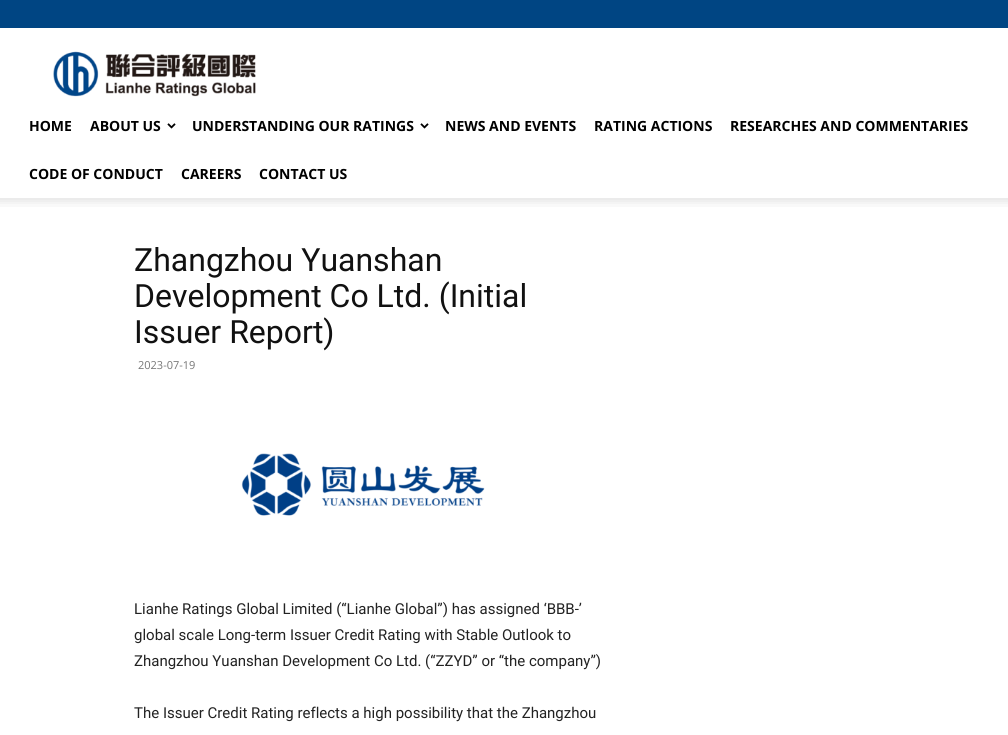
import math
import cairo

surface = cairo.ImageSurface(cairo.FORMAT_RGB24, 1008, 735)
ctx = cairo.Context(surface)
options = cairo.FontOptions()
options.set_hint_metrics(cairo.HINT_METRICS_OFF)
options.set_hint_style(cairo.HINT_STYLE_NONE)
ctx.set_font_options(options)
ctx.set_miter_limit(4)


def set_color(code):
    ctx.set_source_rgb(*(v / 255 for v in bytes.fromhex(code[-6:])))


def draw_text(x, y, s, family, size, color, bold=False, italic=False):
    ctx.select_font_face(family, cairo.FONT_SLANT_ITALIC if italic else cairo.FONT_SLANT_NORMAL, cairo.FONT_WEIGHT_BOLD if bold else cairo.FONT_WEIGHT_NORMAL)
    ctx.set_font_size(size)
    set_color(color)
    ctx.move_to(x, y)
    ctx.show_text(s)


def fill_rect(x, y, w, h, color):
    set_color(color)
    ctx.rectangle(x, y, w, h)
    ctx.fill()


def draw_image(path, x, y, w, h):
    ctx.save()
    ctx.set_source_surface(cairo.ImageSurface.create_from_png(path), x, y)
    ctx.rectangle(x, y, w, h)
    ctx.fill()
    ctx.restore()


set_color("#ffffff")
ctx.paint()
fill_rect(0, 0, 1008, 28, "#004583")
draw_image("assets/img1.png", 53, 51, 203, 46)
draw_text(29, 131, "HOME", "Open Sans", 14, "#000000", bold=True)
draw_text(90, 131, "ABOUT US", "Open Sans", 14, "#000000", bold=True)
draw_image("assets/img2.png", 167, 123, 9, 6)
draw_text(192, 131, "UNDERSTANDING OUR RATINGS", "Open Sans", 14, "#000000", bold=True)
draw_image("assets/img2.png", 420, 123, 9, 6)
draw_text(445, 131, "NEWS AND EVENTS", "Open Sans", 14, "#000000", bold=True)
draw_text(594, 131, "RATING ACTIONS", "Open Sans", 14, "#000000", bold=True)
draw_text(730, 131, "RESEARCHES AND COMMENTARIES", "Open Sans", 14, "#000000", bold=True)
draw_text(29, 179, "CODE OF CONDUCT", "Open Sans", 14, "#000000", bold=True)
draw_text(181, 179, "CAREERS", "Open Sans", 14, "#000000", bold=True)
draw_text(259, 179, "CONTACT US", "Open Sans", 14, "#000000", bold=True)
draw_image("assets/img3.png", 0, 198, 1008, 9)
draw_text(134, 271, "Zhangzhou Yuanshan", "Roboto", 32, "#111111")
draw_text(134, 307, "Development Co Ltd. (Initial", "Roboto", 32, "#111111")
draw_text(134, 343, "Issuer Report)", "Roboto", 32, "#111111")
draw_text(138, 369, "2023-07-19", "Open Sans", 11, "#767676")
draw_image("assets/img4.png", 241, 453, 244, 63)
draw_text(134, 614, "Lianhe Ratings Global Limited (“Lianhe Global”) has assigned ‘BBB-’", "Roboto", 15, "#222222")
draw_text(134, 640, "global scale Long-term Issuer Credit Rating with Stable Outlook to", "Roboto", 15, "#222222")
draw_text(134, 666, "Zhangzhou Yuanshan Development Co Ltd. (“ZZYD” or “the company”)", "Roboto", 15, "#222222")
draw_text(134, 718, "The Issuer Credit Rating reflects a high possibility that the Zhangzhou", "Roboto", 15, "#222222")
surface.write_to_png("output.png")
